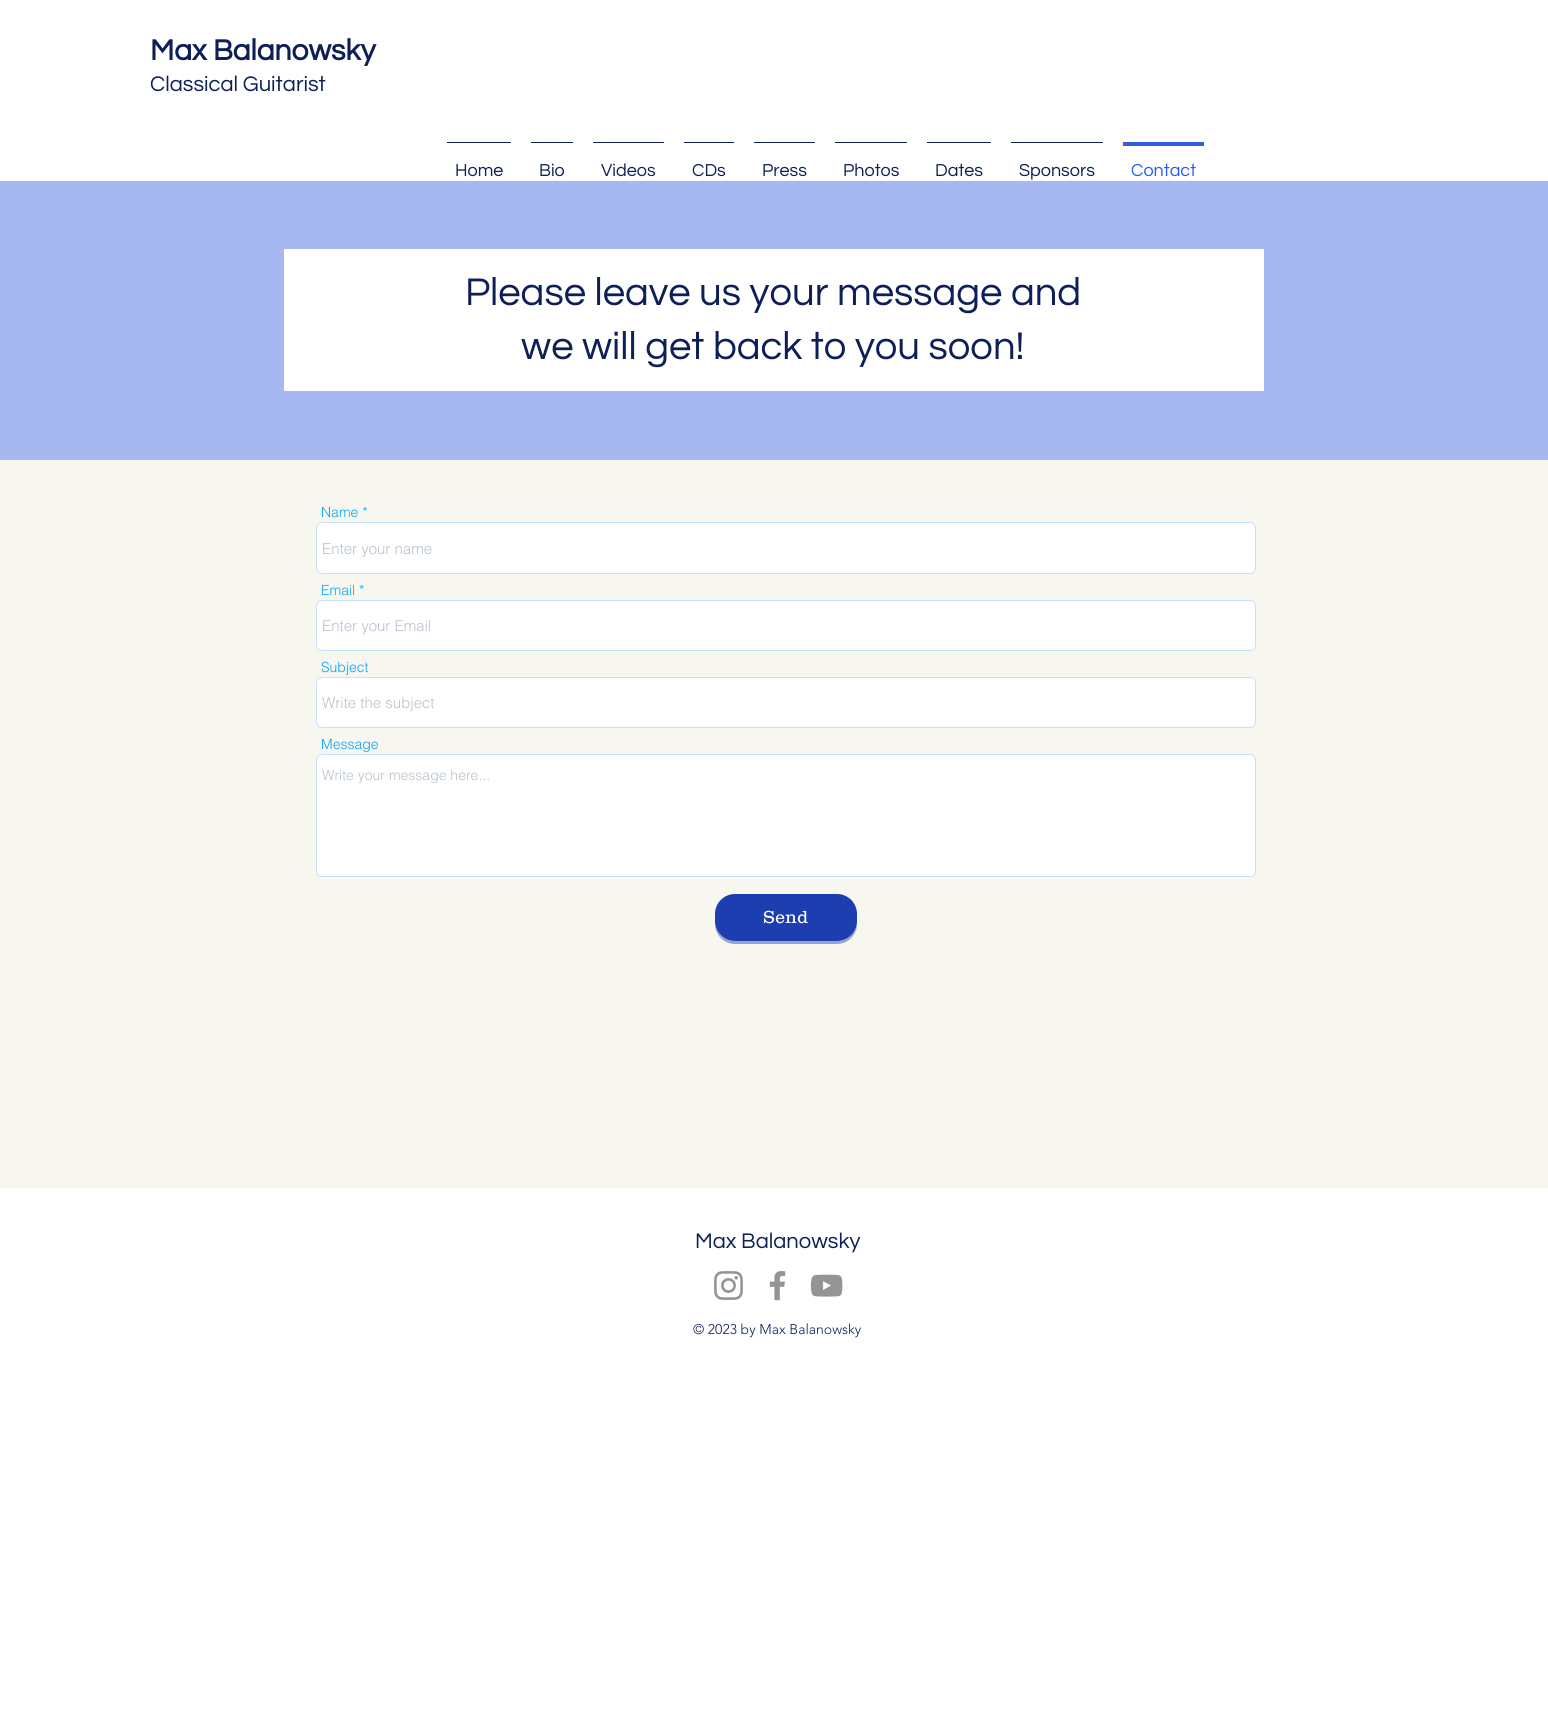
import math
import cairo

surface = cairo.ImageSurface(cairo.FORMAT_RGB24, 1548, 1724)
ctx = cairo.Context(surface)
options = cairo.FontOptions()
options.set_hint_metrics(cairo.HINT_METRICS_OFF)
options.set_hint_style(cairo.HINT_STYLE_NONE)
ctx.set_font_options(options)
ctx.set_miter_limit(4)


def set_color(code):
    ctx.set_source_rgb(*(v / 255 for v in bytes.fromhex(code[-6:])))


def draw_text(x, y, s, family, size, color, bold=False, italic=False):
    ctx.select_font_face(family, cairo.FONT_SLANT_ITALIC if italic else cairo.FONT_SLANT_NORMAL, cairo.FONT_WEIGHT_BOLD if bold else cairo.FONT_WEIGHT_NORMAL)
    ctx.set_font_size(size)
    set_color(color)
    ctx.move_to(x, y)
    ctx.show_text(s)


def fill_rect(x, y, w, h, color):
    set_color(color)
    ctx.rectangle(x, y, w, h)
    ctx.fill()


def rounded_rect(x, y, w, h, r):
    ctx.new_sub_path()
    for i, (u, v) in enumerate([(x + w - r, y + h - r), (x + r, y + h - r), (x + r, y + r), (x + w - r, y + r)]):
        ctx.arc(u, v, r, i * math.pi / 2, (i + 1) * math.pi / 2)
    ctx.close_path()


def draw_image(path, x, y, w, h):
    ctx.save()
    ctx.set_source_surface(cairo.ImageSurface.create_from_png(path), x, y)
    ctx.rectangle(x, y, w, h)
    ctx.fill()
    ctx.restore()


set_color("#ffffff")
ctx.paint()
draw_text(150, 60, "Max Balanowsky", "Questrial", 30, "#0e1f58", bold=True)
draw_text(150, 91, "Classical Guitarist", "Questrial", 22, "#0e1f58")
fill_rect(447, 142, 64, 1, "#0e1f58")
draw_text(455, 176, "Home", "Questrial", 18, "#0e1f58")
fill_rect(531, 142, 42, 1, "#0e1f58")
draw_text(539, 176, "Bio", "Questrial", 18, "#0e1f58")
fill_rect(593, 142, 71, 1, "#0e1f58")
draw_text(601, 176, "Videos", "Questrial", 18, "#0e1f58")
fill_rect(684, 142, 50, 1, "#0e1f58")
draw_text(692, 176, "CDs", "Questrial", 18, "#0e1f58")
fill_rect(754, 142, 61, 1, "#0e1f58")
draw_text(762, 176, "Press", "Questrial", 18, "#0e1f58")
fill_rect(835, 142, 72, 1, "#0e1f58")
draw_text(843, 176, "Photos", "Questrial", 18, "#0e1f58")
fill_rect(927, 142, 64, 1, "#0e1f58")
draw_text(935, 176, "Dates", "Questrial", 18, "#0e1f58")
fill_rect(1011, 142, 92, 1, "#0e1f58")
draw_text(1019, 176, "Sponsors", "Questrial", 18, "#0e1f58")
fill_rect(1123, 142, 81, 4, "#345bdf")
draw_text(1131, 176, "Contact", "Questrial", 18, "#255bfe")
fill_rect(0, 181, 1548, 279, "#a7b8f1")
fill_rect(284, 249, 980, 142, "#ffffff")
draw_text(465, 305, "Please leave us your message and", "Questrial", 40, "#0e1f58")
draw_text(521, 359, "we will get back to you soon!", "Questrial", 40, "#0e1f58")
fill_rect(0, 460, 1548, 728, "#f7f6ef")
draw_text(321, 517, "Name *", "helvetica Light", 14, "#00a6ff")
set_color("#ffffff")
rounded_rect(316.5, 522.5, 939, 51, 5.5)
ctx.fill_preserve()
set_color("#c6e2f7")
ctx.set_line_width(1)
ctx.stroke()
draw_text(322, 554, "Enter your name", "helvetica Light", 15, "#b6c1cd")
draw_text(321, 595, "Email *", "helvetica Light", 14, "#00a6ff")
set_color("#ffffff")
rounded_rect(316.5, 600.5, 939, 50, 5.5)
ctx.fill_preserve()
set_color("#c6e2f7")
ctx.stroke()
draw_text(322, 631, "Enter your Email", "helvetica Light", 15, "#b6c1cd")
draw_text(321, 672, "Subject", "helvetica Light", 14, "#00a6ff")
set_color("#ffffff")
rounded_rect(316.5, 677.5, 939, 50, 5.5)
ctx.fill_preserve()
set_color("#c6e2f7")
ctx.stroke()
draw_text(322, 708, "Write the subject", "helvetica Light", 15, "#b6c1cd")
draw_text(321, 749, "Message", "helvetica Light", 14, "#00a6ff")
set_color("#ffffff")
rounded_rect(316.5, 754.5, 939, 122, 5.5)
ctx.fill_preserve()
set_color("#c6e2f7")
ctx.stroke()
draw_text(322, 780, "Write your message here...", "helvetica Light", 14, "#b6c1cd")
set_color("#96a5ce")
ctx.new_path()
ctx.move_to(715, 921)
ctx.line_to(715, 924)
ctx.curve_to(715, 935, 724, 944, 735, 944)
ctx.line_to(837, 944)
ctx.curve_to(848, 944, 857, 935, 857, 924)
ctx.line_to(857, 921)
ctx.curve_to(857, 932, 848, 941, 837, 941)
ctx.line_to(735, 941)
ctx.curve_to(724, 941, 715, 932, 715, 921)
ctx.close_path()
ctx.fill()
set_color("#1c3eb0")
rounded_rect(715, 894, 142, 47, 20)
ctx.fill()
draw_text(763, 923, "Send", "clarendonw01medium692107 Light", 18, "#ffffff")
draw_text(695, 1248, "Max Balanowsky", "Questrial", 22, "#0e1f58")
draw_image("assets/img1.png", 714, 1271, 29, 29)
draw_image("assets/img2.png", 769, 1271, 17, 30)
draw_image("assets/img3.png", 810, 1274, 33, 23)
draw_text(693, 1334, "© 2023 by Max Balanowsky", "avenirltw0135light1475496 Light", 14, "#0e1f58")
surface.write_to_png("output.png")
